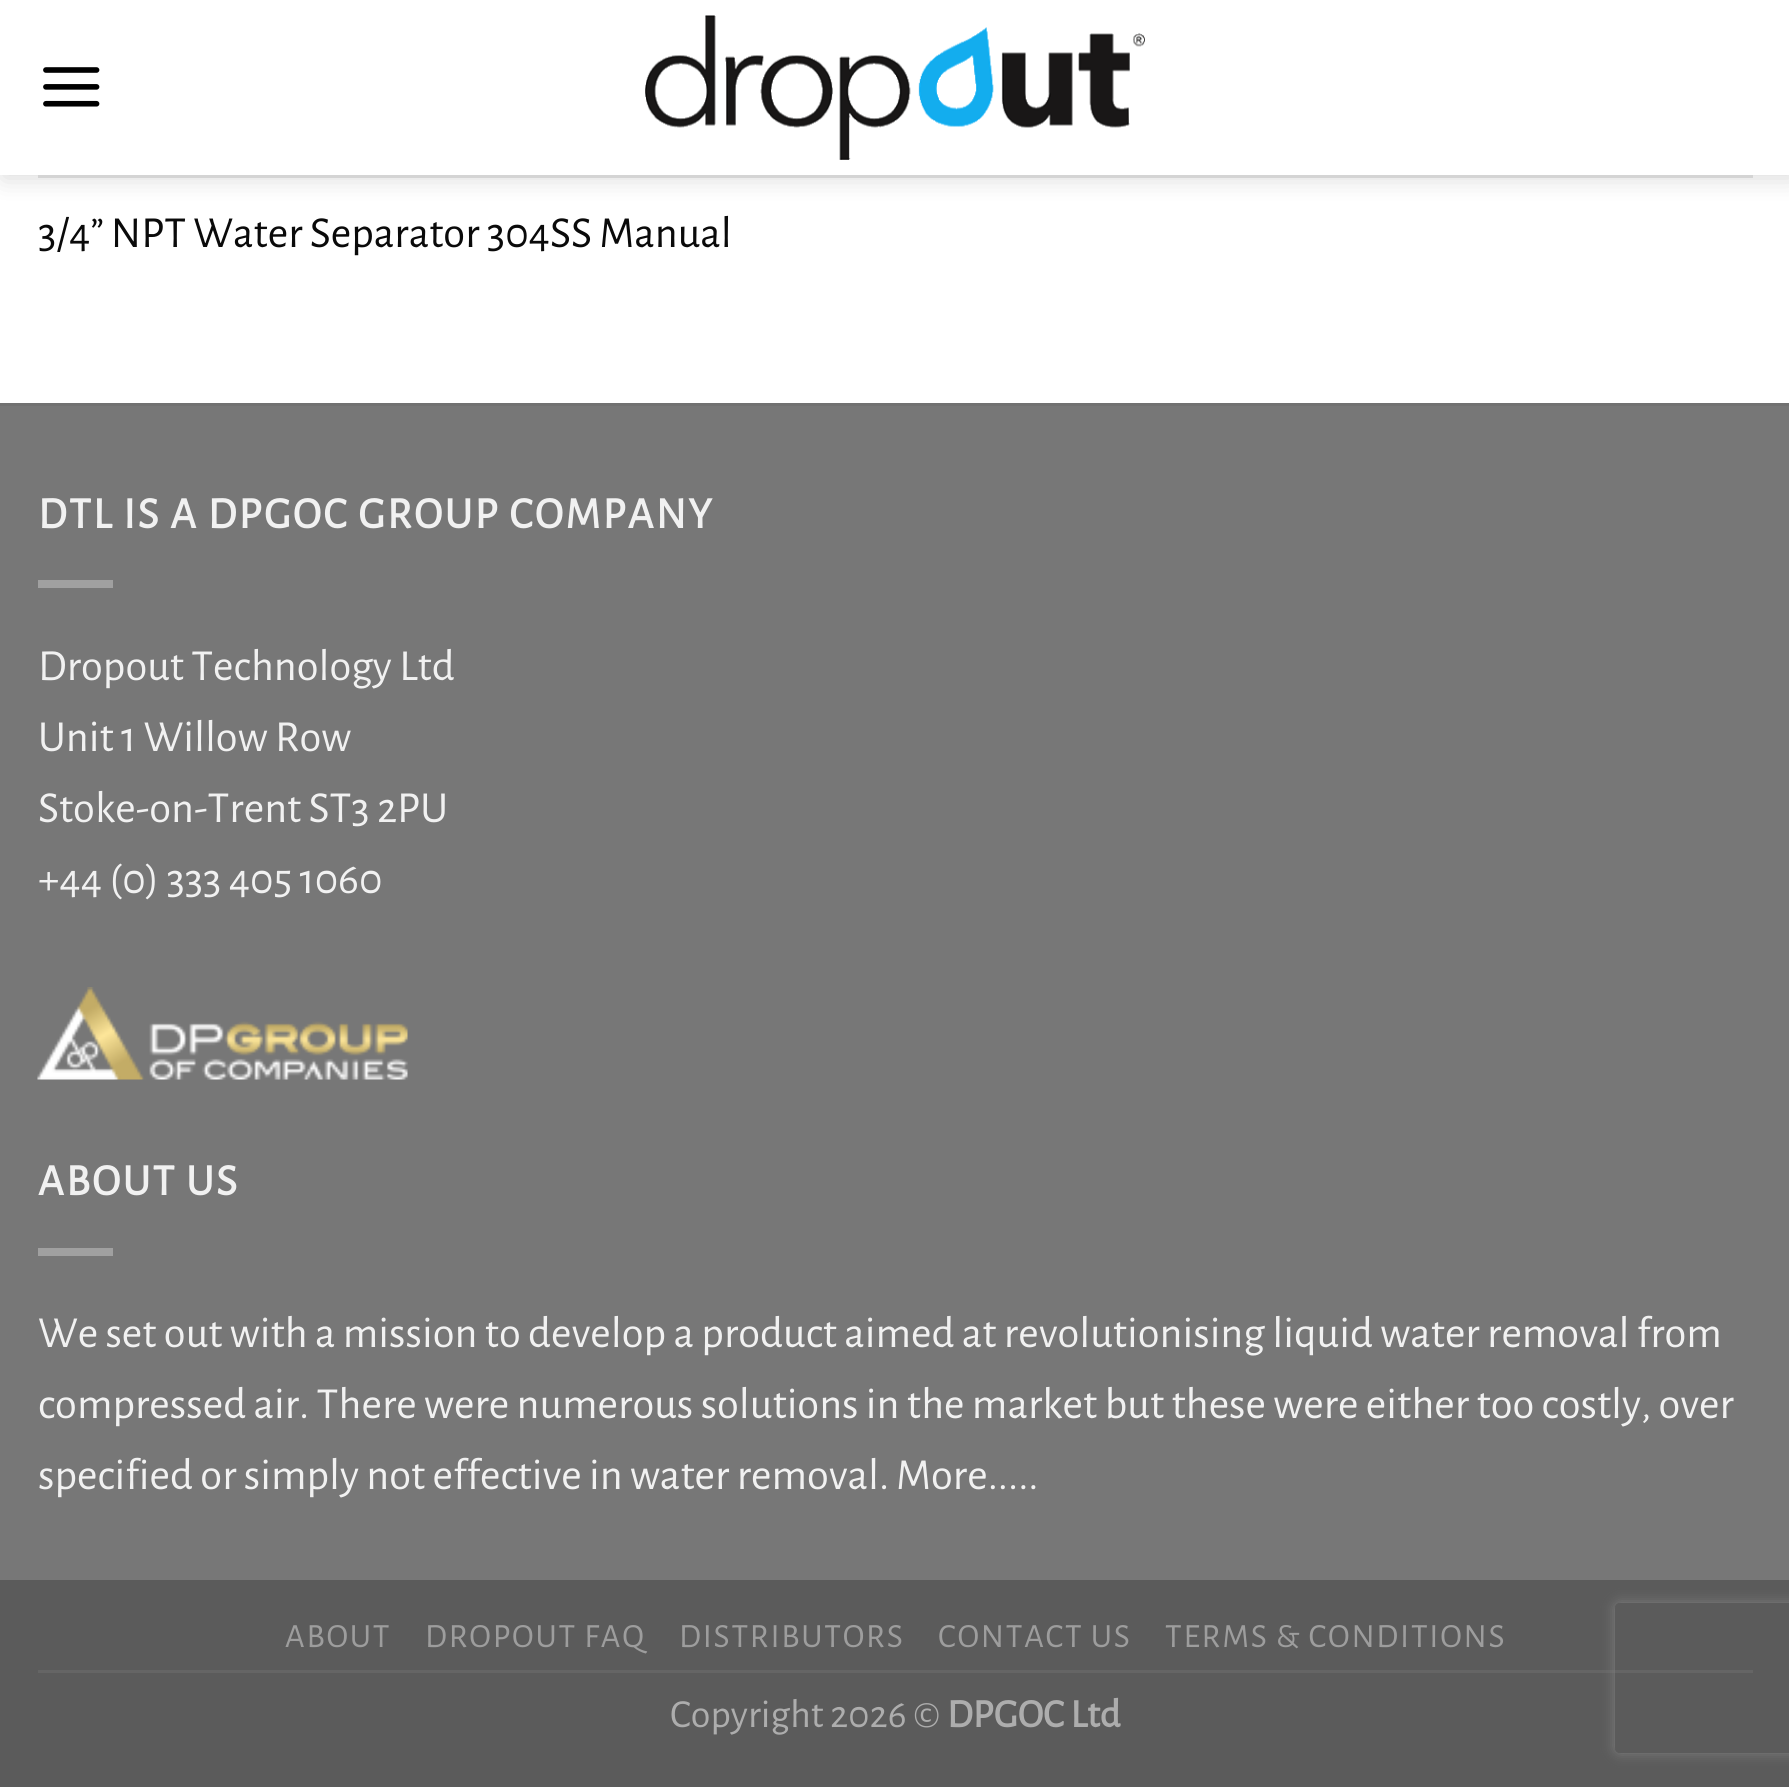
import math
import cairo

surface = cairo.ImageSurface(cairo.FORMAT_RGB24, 1789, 1787)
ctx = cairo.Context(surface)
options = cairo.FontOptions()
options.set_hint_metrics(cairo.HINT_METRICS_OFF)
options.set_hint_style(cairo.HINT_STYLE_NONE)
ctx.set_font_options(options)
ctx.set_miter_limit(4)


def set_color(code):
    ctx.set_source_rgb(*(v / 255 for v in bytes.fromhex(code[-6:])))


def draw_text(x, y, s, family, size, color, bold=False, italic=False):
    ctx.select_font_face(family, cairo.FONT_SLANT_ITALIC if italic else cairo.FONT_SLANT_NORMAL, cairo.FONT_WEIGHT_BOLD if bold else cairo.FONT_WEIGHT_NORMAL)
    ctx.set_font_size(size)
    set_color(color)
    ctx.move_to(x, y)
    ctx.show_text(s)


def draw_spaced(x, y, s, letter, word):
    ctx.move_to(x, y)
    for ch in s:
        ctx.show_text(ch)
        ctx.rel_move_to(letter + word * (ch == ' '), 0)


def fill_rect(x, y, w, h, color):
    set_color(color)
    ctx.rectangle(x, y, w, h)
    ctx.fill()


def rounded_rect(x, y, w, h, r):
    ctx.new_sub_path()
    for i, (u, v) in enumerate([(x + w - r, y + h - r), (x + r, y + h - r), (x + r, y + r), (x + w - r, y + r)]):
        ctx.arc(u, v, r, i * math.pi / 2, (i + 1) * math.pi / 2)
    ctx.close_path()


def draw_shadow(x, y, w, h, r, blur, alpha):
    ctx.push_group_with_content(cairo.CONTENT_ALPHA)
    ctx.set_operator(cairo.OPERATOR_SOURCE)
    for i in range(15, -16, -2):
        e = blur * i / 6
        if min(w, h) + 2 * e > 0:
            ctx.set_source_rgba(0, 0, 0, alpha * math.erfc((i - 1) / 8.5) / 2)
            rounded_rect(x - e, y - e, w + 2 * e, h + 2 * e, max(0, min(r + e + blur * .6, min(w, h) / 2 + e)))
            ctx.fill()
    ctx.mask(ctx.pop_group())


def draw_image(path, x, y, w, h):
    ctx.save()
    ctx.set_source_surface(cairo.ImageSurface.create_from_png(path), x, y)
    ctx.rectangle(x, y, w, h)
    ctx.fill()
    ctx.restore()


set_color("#ffffff")
ctx.paint()
set_color("#000000")
draw_shadow(3, 3, 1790, 175, 0, 12.5, 0.15)
fill_rect(0, 0, 1789, 175, "#ffffff")
draw_image("assets/img1.png", 43, 67, 57, 40)
draw_image("assets/img2.png", 645, 15, 500, 145)
fill_rect(38, 175, 1715, 3, "#d4d4d4")
draw_text(38, 247, "3/4” NPT Water Separator 304SS Manual", "Alegreya Sans", 44.4, "#0a0a0a")
fill_rect(0, 406, 1789, 1174, "#777777")
fill_rect(0, 403, 1789, 3, "#717171")
ctx.select_font_face("Alegreya Sans", cairo.FONT_SLANT_NORMAL, cairo.FONT_WEIGHT_BOLD)
set_color("#f1f1f1")
draw_spaced(38, 528, "DTL IS A DPGOC GROUP COMPANY", 2.25, 0)
fill_rect(38, 580, 75, 8, "#a0a0a0")
draw_text(38, 680, "Dropout Technology Ltd", "Alegreya Sans", 44.4, "#f1f1f1")
draw_text(38, 751, "Unit 1 Willow Row", "Alegreya Sans", 44.4, "#f1f1f1")
draw_text(38, 822, "Stoke-on-Trent ST3 2PU", "Alegreya Sans", 44.4, "#f1f1f1")
draw_text(38, 893, "+44 (0) 333 405 1060", "Alegreya Sans", 44.4, "#f1f1f1")
draw_image("assets/img3.png", 37, 987, 371, 93)
ctx.select_font_face("Alegreya Sans", cairo.FONT_SLANT_NORMAL, cairo.FONT_WEIGHT_BOLD)
draw_spaced(38, 1195, "ABOUT US", 2.25, 0)
fill_rect(38, 1248, 75, 8, "#a0a0a0")
draw_text(38, 1347, "We set out with a mission to develop a product aimed at revolutionising liquid water removal from", "Alegreya Sans", 44.4, "#f1f1f1")
draw_text(38, 1418, "compressed air. There were numerous solutions in the market but these were either too costly, over", "Alegreya Sans", 44.4, "#f1f1f1")
draw_text(38, 1489, "specified or simply not effective in water removal.", "Alegreya Sans", 44.4, "#f1f1f1")
draw_text(896, 1489, "More.....", "Alegreya Sans", 44.4, "#f1f1f1")
fill_rect(0, 1580, 1789, 207, "#5b5b5b")
fill_rect(38, 1670, 1715, 3, "#656565")
ctx.set_font_size(34)
set_color("#9d9d9d")
draw_spaced(285, 1647, "ABOUT", 1.75, 0)
draw_spaced(425, 1647, "DROPOUT FAQ", 1.75, 0)
draw_spaced(679, 1647, "DISTRIBUTORS", 1.75, 0)
draw_spaced(938, 1647, "CONTACT US", 1.75, 0)
draw_spaced(1165, 1647, "TERMS & CONDITIONS", 1.75, 0)
draw_text(670, 1727, "Copyright 2026 ©", "Alegreya Sans", 40, "#adadad")
draw_text(947, 1727, "DPGOC Ltd", "Alegreya Sans", 40, "#adadad", bold=True)
ctx.save()
ctx.set_fill_rule(cairo.FILL_RULE_EVEN_ODD)
ctx.new_path()
ctx.move_to(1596, 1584)
ctx.line_to(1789, 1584)
ctx.line_to(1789, 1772)
ctx.line_to(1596, 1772)
ctx.close_path()
ctx.move_to(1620, 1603)
ctx.line_to(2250, 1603)
ctx.curve_to(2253, 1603, 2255, 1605, 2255, 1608)
ctx.line_to(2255, 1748)
ctx.curve_to(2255, 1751, 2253, 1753, 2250, 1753)
ctx.line_to(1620, 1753)
ctx.curve_to(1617, 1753, 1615, 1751, 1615, 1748)
ctx.line_to(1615, 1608)
ctx.curve_to(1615, 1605, 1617, 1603, 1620, 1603)
ctx.close_path()
ctx.clip()
set_color("#808080")
draw_shadow(1615, 1603, 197, 150, 5, 6, 1)
ctx.restore()
surface.write_to_png("output.png")
